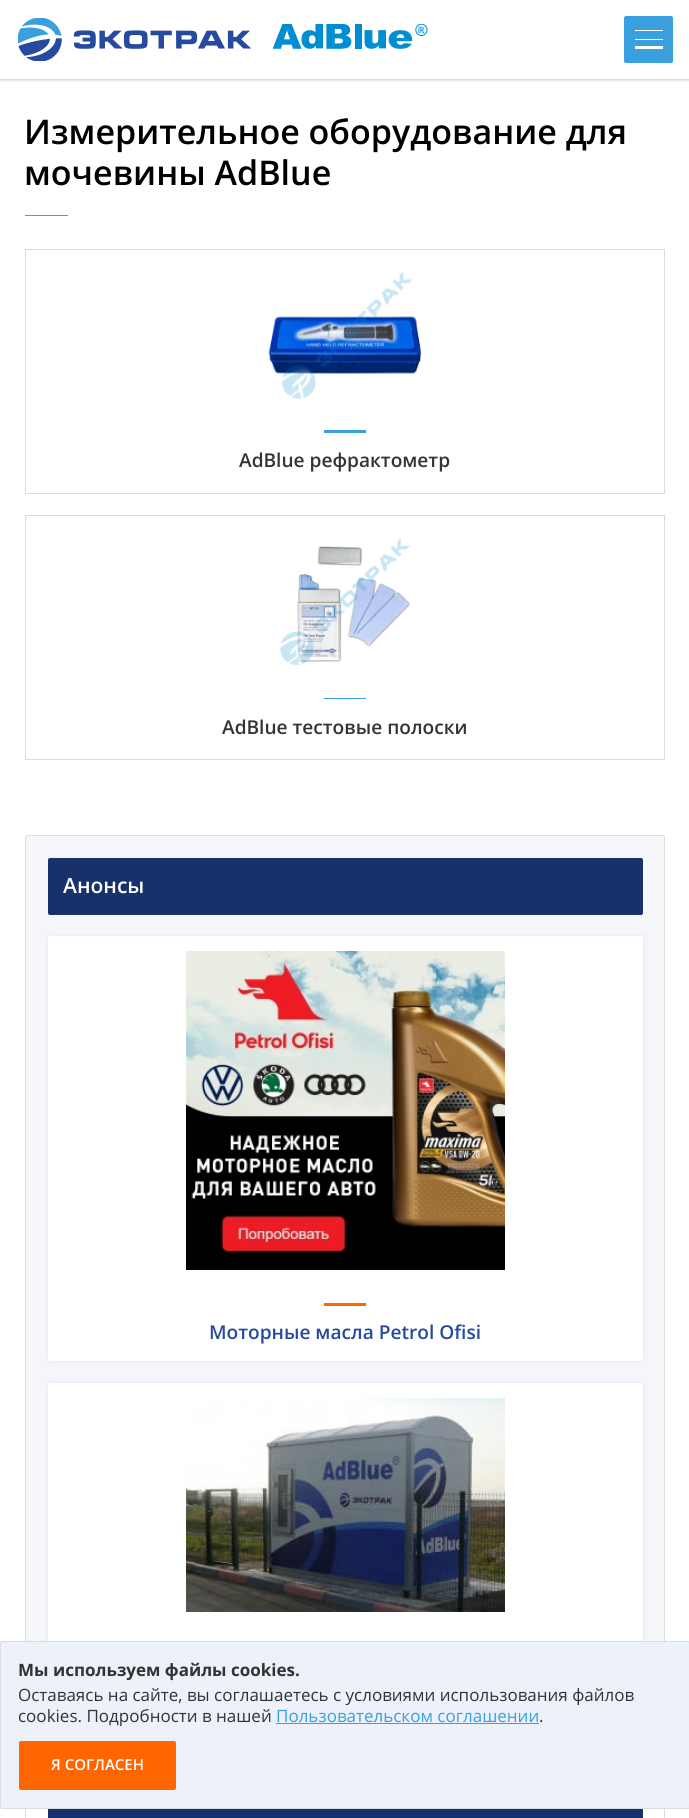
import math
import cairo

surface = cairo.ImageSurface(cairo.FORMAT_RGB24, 689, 1818)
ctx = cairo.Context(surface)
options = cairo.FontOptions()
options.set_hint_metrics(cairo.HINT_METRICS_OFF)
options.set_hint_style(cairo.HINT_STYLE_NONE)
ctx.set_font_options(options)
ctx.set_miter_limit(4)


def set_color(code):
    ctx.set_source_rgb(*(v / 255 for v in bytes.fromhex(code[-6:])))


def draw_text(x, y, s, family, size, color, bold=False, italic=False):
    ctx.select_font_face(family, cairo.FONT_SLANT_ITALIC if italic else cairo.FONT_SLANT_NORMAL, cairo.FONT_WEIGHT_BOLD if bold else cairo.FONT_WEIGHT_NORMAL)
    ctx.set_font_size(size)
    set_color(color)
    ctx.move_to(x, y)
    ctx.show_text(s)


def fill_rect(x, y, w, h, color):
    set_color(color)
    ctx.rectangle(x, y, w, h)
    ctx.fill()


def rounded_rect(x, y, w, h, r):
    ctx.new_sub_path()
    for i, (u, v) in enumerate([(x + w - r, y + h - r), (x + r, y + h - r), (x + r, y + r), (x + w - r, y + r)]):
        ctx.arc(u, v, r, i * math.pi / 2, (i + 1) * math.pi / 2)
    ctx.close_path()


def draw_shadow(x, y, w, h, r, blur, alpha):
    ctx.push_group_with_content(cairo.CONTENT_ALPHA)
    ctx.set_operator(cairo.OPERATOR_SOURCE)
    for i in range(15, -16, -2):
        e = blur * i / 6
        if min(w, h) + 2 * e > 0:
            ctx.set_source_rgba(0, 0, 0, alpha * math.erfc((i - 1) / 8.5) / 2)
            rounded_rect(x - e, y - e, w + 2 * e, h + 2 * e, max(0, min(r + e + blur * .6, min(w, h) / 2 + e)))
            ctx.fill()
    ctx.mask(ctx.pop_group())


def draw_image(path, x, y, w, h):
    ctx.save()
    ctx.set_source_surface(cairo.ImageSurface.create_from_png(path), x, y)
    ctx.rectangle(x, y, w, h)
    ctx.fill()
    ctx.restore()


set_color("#ffffff")
ctx.paint()
set_color("#333333")
draw_shadow(0, 1, 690, 79, 0, 1.5, 0.3)
fill_rect(0, 0, 689, 79, "#ffffff")
draw_image("assets/img1.png", 18, 18, 233, 43)
draw_image("assets/img2.png", 273, 24, 155, 25)
set_color("#399fdf")
rounded_rect(624, 16, 49, 47, 2)
ctx.fill()
fill_rect(635, 39, 28, 1, "#ffffff")
fill_rect(635, 30, 28, 1, "#ffffff")
fill_rect(635, 46, 28, 3, "#ffffff")
draw_text(24, 144, "Измерительное оборудование для", "Open Sans SemiBold", 34, "#000000")
draw_text(24, 185, "мочевины AdBlue", "Open Sans SemiBold", 34, "#000000")
fill_rect(25, 215, 43, 1, "#ff6600")
ctx.rectangle(25.5, 249.5, 639, 244)
set_color("#dcdcdc")
ctx.set_line_width(1)
ctx.stroke()
draw_image("assets/img3.png", 268, 271, 154, 128)
fill_rect(324, 430, 42, 3, "#399fdf")
draw_text(239, 467, "AdBlue рефрактометр", "Open Sans SemiBold", 19.1, "#333333")
ctx.rectangle(25.5, 515.5, 639, 244)
set_color("#dcdcdc")
ctx.stroke()
draw_image("assets/img4.png", 279, 537, 132, 128)
fill_rect(324, 698, 42, 1, "#399fdf")
draw_text(222, 734, "AdBlue тестовые полоски", "Open Sans SemiBold", 19.1, "#333333")
set_color("#f5f6fa")
rounded_rect(25.5, 835.5, 639, 888, 1.5)
ctx.fill_preserve()
set_color("#dcdcdc")
ctx.stroke()
set_color("#19316b")
rounded_rect(48, 858, 595, 57, 2)
ctx.fill()
draw_text(63, 893, "Анонсы", "Open Sans SemiBold", 21, "#ffffff")
set_color("#9492f5")
draw_shadow(48, 936, 595, 425, 2, 2.5, 0.2)
set_color("#ffffff")
rounded_rect(48, 936, 595, 425, 2)
ctx.fill()
draw_image("assets/img5.png", 186, 951, 319, 319)
fill_rect(324, 1303, 42, 3, "#ff6600")
draw_text(209, 1339, "Моторные масла Petrol Ofisi", "Open Sans SemiBold", 19.1, "#254a9f")
set_color("#9492f5")
draw_shadow(48, 1383, 595, 318, 2, 2.5, 0.2)
set_color("#ffffff")
rounded_rect(48, 1383, 595, 318, 2)
ctx.fill()
draw_image("assets/img6.png", 186, 1398, 319, 214)
ctx.rectangle(25.5, 1766.5, 639, 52)
set_color("#dcdcdc")
ctx.stroke()
fill_rect(48, 1809, 595, 9, "#19316b")
set_color("#ecf1fa")
rounded_rect(0.5, 1641.5, 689, 167, 1.5)
ctx.fill_preserve()
set_color("#dcdcdc")
ctx.stroke()
draw_text(18, 1676, "Мы используем файлы cookies.", "Open Sans", 17, "#333333", bold=True)
draw_text(18, 1701, "Оставаясь на сайте, вы соглашаетесь с условиями использования файлов", "Open Sans", 17, "#333333")
draw_text(18, 1722, "cookies. Подробности в нашей", "Open Sans", 17, "#333333")
draw_text(276, 1722, "Пользовательском соглашении", "Open Sans", 17, "#399fdf")
fill_rect(276, 1723, 263, 1, "#399fdf")
draw_text(539, 1722, ".", "Open Sans", 17, "#333333")
set_color("#ff6600")
rounded_rect(19.5, 1741.5, 156, 48, 1.5)
ctx.fill_preserve()
ctx.stroke()
draw_text(51, 1770, "Я СОГЛАСЕН", "Open Sans SemiBold", 15, "#ffffff")
surface.write_to_png("output.png")
